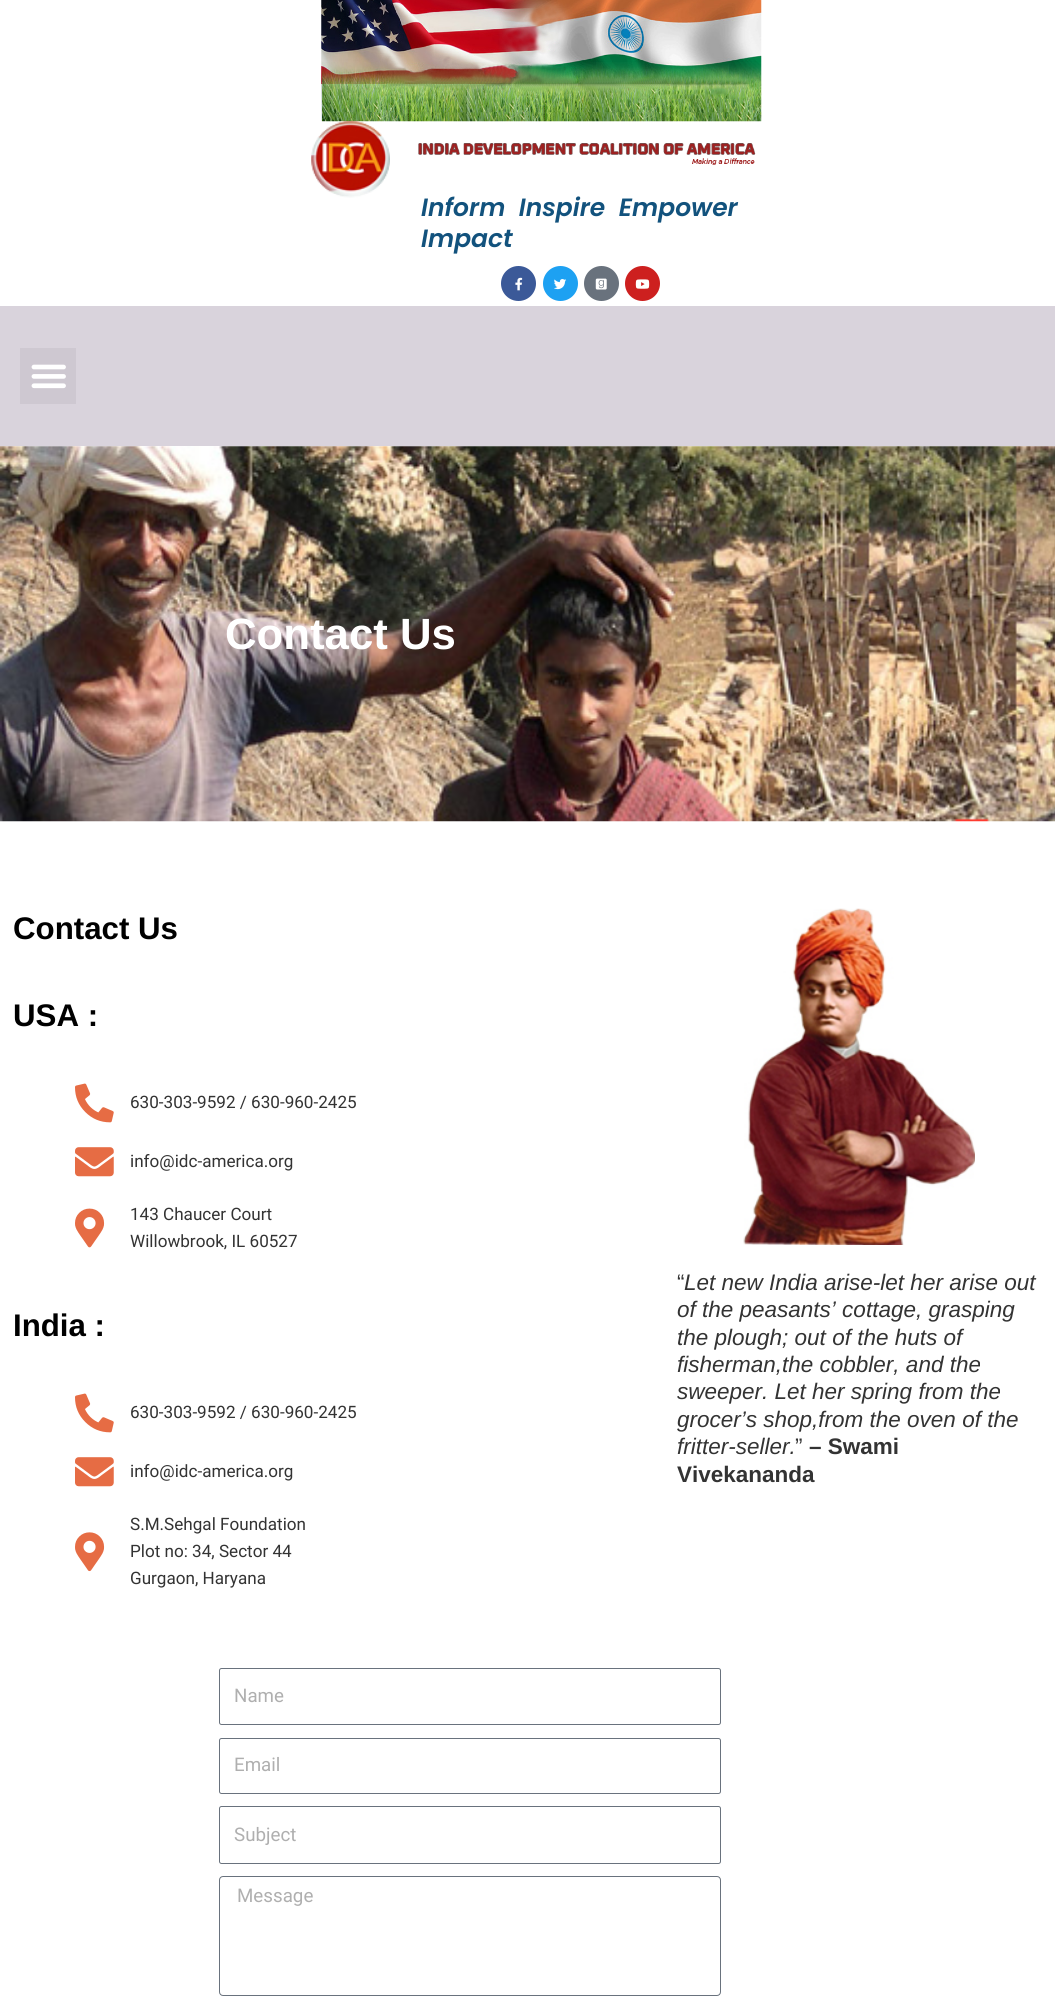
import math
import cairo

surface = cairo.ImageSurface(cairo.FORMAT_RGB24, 1055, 2007)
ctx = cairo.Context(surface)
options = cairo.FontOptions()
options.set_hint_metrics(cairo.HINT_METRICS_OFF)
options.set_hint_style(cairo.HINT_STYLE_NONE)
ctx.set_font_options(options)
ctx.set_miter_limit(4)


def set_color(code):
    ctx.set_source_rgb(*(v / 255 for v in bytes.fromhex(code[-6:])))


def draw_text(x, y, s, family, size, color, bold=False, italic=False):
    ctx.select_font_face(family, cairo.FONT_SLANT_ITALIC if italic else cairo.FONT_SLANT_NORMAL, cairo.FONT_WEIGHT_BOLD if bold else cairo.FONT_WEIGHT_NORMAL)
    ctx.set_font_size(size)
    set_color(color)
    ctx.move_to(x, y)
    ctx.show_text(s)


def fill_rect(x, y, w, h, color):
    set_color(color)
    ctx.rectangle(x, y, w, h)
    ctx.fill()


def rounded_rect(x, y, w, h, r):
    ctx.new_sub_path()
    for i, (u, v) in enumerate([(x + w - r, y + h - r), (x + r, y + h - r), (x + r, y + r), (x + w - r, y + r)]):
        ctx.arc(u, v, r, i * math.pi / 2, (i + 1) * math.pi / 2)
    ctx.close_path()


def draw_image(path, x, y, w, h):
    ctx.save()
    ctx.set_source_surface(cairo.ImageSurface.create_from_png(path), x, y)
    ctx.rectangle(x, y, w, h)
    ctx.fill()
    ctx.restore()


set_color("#ffffff")
ctx.paint()
draw_image("assets/img1.png", 321, 0, 441, 122)
draw_image("assets/img2.png", 311, 121, 79, 77)
draw_image("assets/img3.png", 418, 143, 338, 22)
draw_text(421, 216, "Inform  Inspire  Empower", "Poppins SemiBold", 25, "#12527d", italic=True)
draw_text(421, 247, "Impact", "Poppins SemiBold", 25, "#12527d", italic=True)
set_color("#3b5998")
ctx.new_path()
ctx.arc(518.5, 283.5, 17.5, 0, 2 * math.pi)
ctx.fill()
draw_image("assets/img4.png", 515, 277, 8, 14)
set_color("#1da1f2")
ctx.arc(560.5, 283.5, 17.5, 0, 2 * math.pi)
ctx.fill()
draw_image("assets/img5.png", 554, 279, 13, 11)
set_color("#69727d")
ctx.arc(601.5, 283.5, 17.5, 0, 2 * math.pi)
ctx.fill()
draw_image("assets/img6.png", 595, 278, 12, 12)
set_color("#cd201f")
ctx.arc(642.5, 283.5, 17.5, 0, 2 * math.pi)
ctx.fill()
draw_image("assets/img7.png", 635, 279, 15, 10)
fill_rect(0, 306, 1055, 140, "#d9d3dc")
fill_rect(20, 348, 56, 56, "#cec8d1")
draw_image("assets/img8.png", 31, 364, 35, 25)
draw_image("assets/img9.png", 0, 446, 1055, 376)
draw_text(225, 649, "Contact Us", "Liberation Sans", 43.75, "#ffffff", bold=True)
draw_text(13, 939, "Contact Us", "Liberation Sans", 31.25, "#000000", bold=True)
draw_text(13, 1026, "USA :", "Liberation Sans", 31.25, "#000000", bold=True)
draw_image("assets/img10.png", 75, 1083, 39, 40)
draw_text(130, 1108, "630-303-9592 / 630-960-2425", "Roboto", 17.1, "#333333")
draw_image("assets/img11.png", 75, 1147, 39, 30)
draw_text(130, 1167, "info@idc-america.org", "Roboto", 17.1, "#333333")
draw_image("assets/img12.png", 75, 1208, 30, 40)
draw_text(130, 1220, "143 Chaucer Court", "Roboto", 17.1, "#333333")
draw_text(130, 1247, "Willowbrook, IL 60527", "Roboto", 17.1, "#333333")
draw_text(13, 1336, "India :", "Liberation Sans", 31.25, "#000000", bold=True)
draw_image("assets/img10.png", 75, 1393, 39, 40)
draw_text(130, 1418, "630-303-9592 / 630-960-2425", "Roboto", 17.1, "#333333")
draw_image("assets/img11.png", 75, 1457, 39, 30)
draw_text(130, 1477, "info@idc-america.org", "Roboto", 17.1, "#333333")
draw_image("assets/img13.png", 75, 1532, 30, 40)
draw_text(130, 1530, "S.M.Sehgal Foundation", "Roboto", 17.1, "#333333")
draw_text(130, 1557, "Plot no: 34, Sector 44", "Roboto", 17.1, "#333333")
draw_text(130, 1584, "Gurgaon, Haryana", "Roboto", 17.1, "#333333")
draw_image("assets/img14.png", 743, 908, 232, 337)
draw_text(677, 1290, "“", "Liberation Sans", 22.5, "#333333")
draw_text(684, 1290, "Let new India arise-let her arise out", "Liberation Sans", 22.5, "#333333", italic=True)
draw_text(677, 1317, "of the peasants’ cottage, grasping", "Liberation Sans", 22.5, "#333333", italic=True)
draw_text(677, 1345, "the plough; out of the huts of", "Liberation Sans", 22.5, "#333333", italic=True)
draw_text(677, 1372, "fisherman,the cobbler, and the", "Liberation Sans", 22.5, "#333333", italic=True)
draw_text(677, 1399, "sweeper. Let her spring from the", "Liberation Sans", 22.5, "#333333", italic=True)
draw_text(677, 1427, "grocer’s shop,from the oven of the", "Liberation Sans", 22.5, "#333333", italic=True)
draw_text(677, 1454, "fritter-seller.", "Liberation Sans", 22.5, "#333333", italic=True)
draw_text(795, 1454, "”", "Liberation Sans", 22.5, "#333333")
draw_text(809, 1454, "– Swami", "Liberation Sans", 22.5, "#333333", bold=True)
draw_text(677, 1482, "Vivekananda", "Liberation Sans", 22.5, "#333333", bold=True)
rounded_rect(219.5, 1668.5, 501, 56, 2)
set_color("#69727d")
ctx.set_line_width(1)
ctx.stroke()
draw_text(234, 1702, "Name", "Roboto", 18.75, "#afafaf")
rounded_rect(219.5, 1738.5, 501, 55, 2)
set_color("#69727d")
ctx.stroke()
draw_text(234, 1771, "Email", "Roboto", 18.75, "#afafaf")
rounded_rect(219.5, 1806.5, 501, 57, 2)
set_color("#69727d")
ctx.stroke()
draw_text(234, 1841, "Subject", "Roboto", 18.75, "#afafaf")
rounded_rect(219.5, 1876.5, 501, 119, 3.5)
set_color("#69727d")
ctx.stroke()
draw_text(237, 1902, "Message", "Roboto", 18.75, "#afafaf")
surface.write_to_png("output.png")
